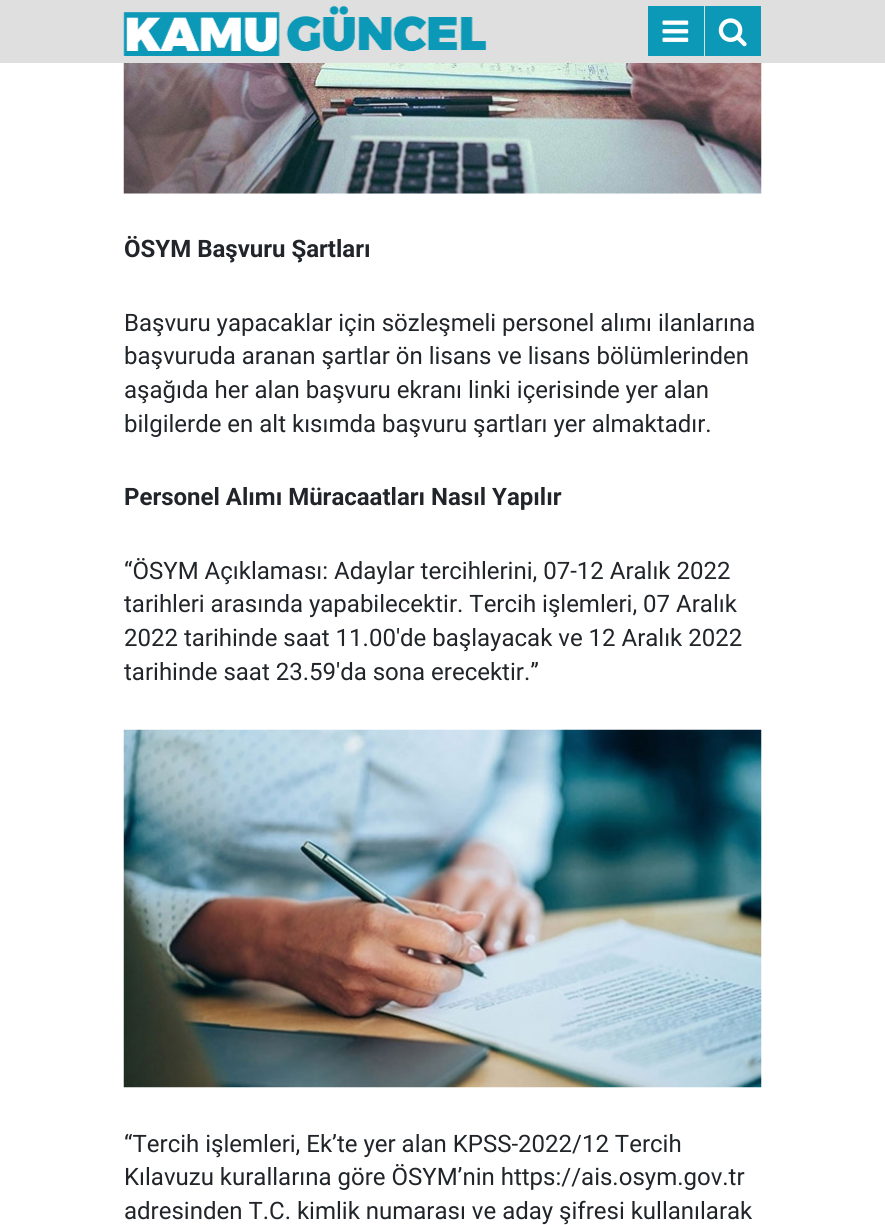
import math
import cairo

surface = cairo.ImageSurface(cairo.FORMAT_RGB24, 885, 1225)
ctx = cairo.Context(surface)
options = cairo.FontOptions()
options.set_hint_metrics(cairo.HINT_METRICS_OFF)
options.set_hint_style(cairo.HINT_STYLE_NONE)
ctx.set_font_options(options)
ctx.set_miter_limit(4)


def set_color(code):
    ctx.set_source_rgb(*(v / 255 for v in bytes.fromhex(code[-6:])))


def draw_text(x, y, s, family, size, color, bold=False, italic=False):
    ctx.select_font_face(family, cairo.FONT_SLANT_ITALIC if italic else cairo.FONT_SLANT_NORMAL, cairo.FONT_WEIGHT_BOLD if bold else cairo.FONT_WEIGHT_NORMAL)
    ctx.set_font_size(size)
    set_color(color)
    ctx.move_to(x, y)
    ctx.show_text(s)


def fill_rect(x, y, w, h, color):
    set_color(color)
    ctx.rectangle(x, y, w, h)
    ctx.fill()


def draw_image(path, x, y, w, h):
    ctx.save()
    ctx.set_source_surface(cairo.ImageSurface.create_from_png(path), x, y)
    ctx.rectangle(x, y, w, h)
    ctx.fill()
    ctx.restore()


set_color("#ffffff")
ctx.paint()
fill_rect(0, 0, 885, 63, "#dfdfdf")
draw_image("assets/img1.png", 123, 6, 364, 50)
fill_rect(648, 6, 56, 50, "#0c99b7")
draw_image("assets/img2.png", 662, 20, 27, 22)
fill_rect(705, 6, 56, 50, "#0c99b7")
draw_image("assets/img3.png", 718, 18, 29, 29)
draw_image("assets/img4.png", 123, 63, 639, 131)
draw_text(124, 257, "ÖSYM Başvuru Şartları", "Roboto", 24, "#212529", bold=True)
draw_text(124, 331, "Başvuru yapacaklar için sözleşmeli personel alımı ilanlarına", "Roboto", 24, "#212529")
draw_text(124, 364, "başvuruda aranan şartlar ön lisans ve lisans bölümlerinden", "Roboto", 24, "#212529")
draw_text(124, 398, "aşağıda her alan başvuru ekranı linki içerisinde yer alan", "Roboto", 24, "#212529")
draw_text(124, 432, "bilgilerde en alt kısımda başvuru şartları yer almaktadır.", "Roboto", 24, "#212529")
draw_text(124, 505, "Personel Alımı Müracaatları Nasıl Yapılır", "Roboto", 24, "#212529", bold=True)
draw_text(124, 579, "“ÖSYM Açıklaması: Adaylar tercihlerini, 07-12 Aralık 2022", "Roboto", 24, "#212529")
draw_text(124, 612, "tarihleri arasında yapabilecektir. Tercih işlemleri, 07 Aralık", "Roboto", 24, "#212529")
draw_text(124, 646, "2022 tarihinde saat 11.00'de başlayacak ve 12 Aralık 2022", "Roboto", 24, "#212529")
draw_text(124, 680, "tarihinde saat 23.59'da sona erecektir.”", "Roboto", 24, "#212529")
draw_image("assets/img5.png", 123, 729, 639, 359)
draw_text(124, 1152, "“Tercih işlemleri, Ek’te yer alan KPSS-2022/12 Tercih", "Roboto", 24, "#212529")
draw_text(124, 1185, "Kılavuzu kurallarına göre ÖSYM’nin https://ais.osym.gov.tr", "Roboto", 24, "#212529")
draw_text(124, 1219, "adresinden T.C. kimlik numarası ve aday şifresi kullanılarak", "Roboto", 24, "#212529")
surface.write_to_png("output.png")
